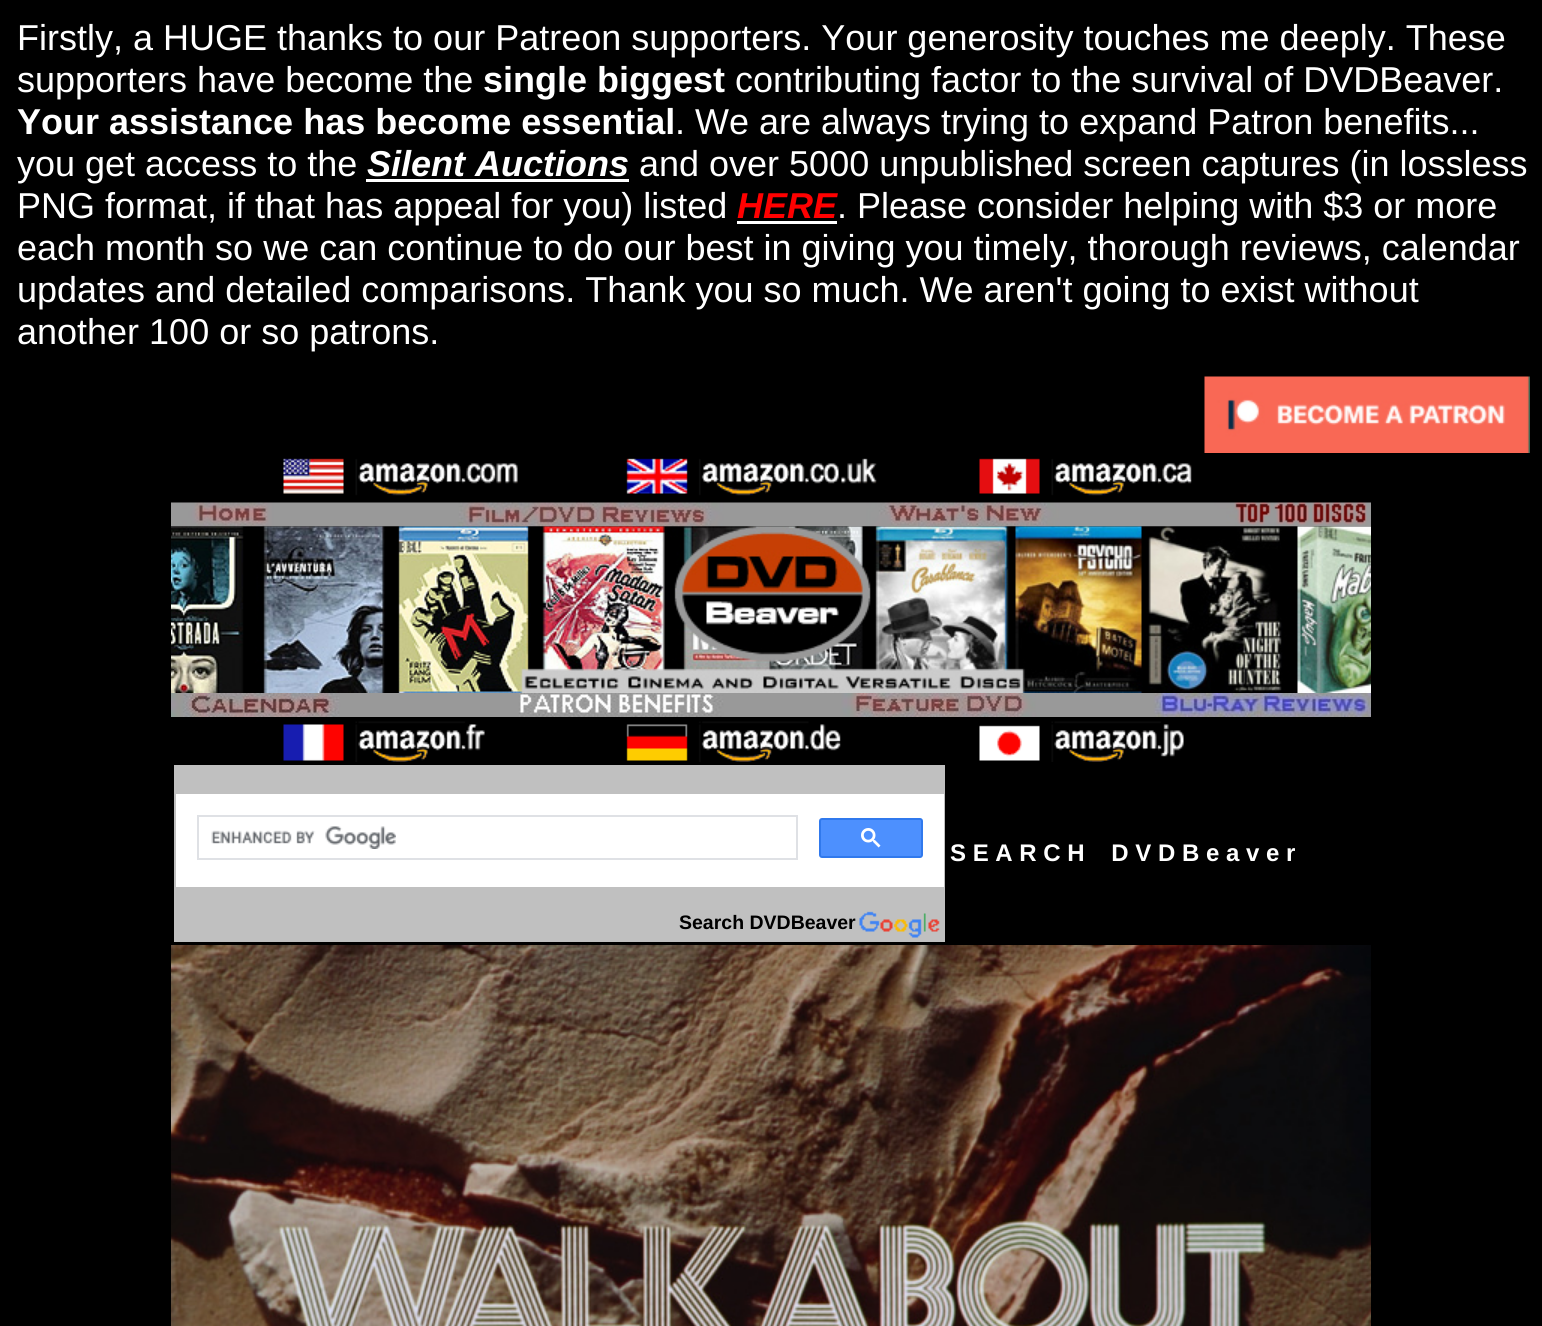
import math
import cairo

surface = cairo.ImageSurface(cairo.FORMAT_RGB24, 1542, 1326)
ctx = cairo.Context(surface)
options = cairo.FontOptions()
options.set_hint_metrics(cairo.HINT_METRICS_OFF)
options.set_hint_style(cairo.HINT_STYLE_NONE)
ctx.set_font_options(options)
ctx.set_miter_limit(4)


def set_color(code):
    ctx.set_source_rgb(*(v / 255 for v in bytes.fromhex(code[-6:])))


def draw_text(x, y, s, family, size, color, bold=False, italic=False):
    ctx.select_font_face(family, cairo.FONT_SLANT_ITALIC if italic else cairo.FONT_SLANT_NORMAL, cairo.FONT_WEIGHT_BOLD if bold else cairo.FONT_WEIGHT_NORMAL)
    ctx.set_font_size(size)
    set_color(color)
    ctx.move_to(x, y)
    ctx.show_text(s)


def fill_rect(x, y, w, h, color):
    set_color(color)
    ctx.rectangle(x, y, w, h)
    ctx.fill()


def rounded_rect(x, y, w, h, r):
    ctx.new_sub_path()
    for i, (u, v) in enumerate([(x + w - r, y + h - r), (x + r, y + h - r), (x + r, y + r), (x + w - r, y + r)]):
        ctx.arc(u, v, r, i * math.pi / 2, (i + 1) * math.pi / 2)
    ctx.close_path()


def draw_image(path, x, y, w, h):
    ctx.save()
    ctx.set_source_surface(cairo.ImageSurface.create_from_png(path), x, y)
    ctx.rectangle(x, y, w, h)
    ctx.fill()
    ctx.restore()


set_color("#000000")
ctx.paint()
draw_text(17, 50, "Firstly, a HUGE thanks to our Patreon supporters. Your generosity touches me deeply. These", "Liberation Sans", 36, "#ffffff")
draw_text(17, 92, "supporters have become the", "Liberation Sans", 36, "#ffffff")
draw_text(483, 92, "single biggest", "Liberation Sans", 36, "#ffffff", bold=True)
draw_text(735, 92, "contributing factor to the survival of DVDBeaver.", "Liberation Sans", 36, "#ffffff")
draw_text(17, 134, "Your assistance has become essential", "Liberation Sans", 36, "#ffffff", bold=True)
draw_text(675, 134, ". We are always trying to expand Patron benefits...", "Liberation Sans", 36, "#ffffff")
draw_text(17, 176, "you get access to the", "Liberation Sans", 36, "#ffffff")
draw_text(367, 176, "Silent Auctions", "Liberation Sans", 36, "#ffffff", bold=True, italic=True)
fill_rect(366, 179, 263, 3, "#ffffff")
draw_text(639, 176, "and over 5000 unpublished screen captures (in lossless", "Liberation Sans", 36, "#ffffff")
draw_text(17, 218, "PNG format, if that has appeal for you) listed", "Liberation Sans", 36, "#ffffff")
draw_text(737, 218, "HERE", "Liberation Sans", 36, "#ff0000", bold=True, italic=True)
draw_text(837, 218, ". Please consider helping with $3 or more", "Liberation Sans", 36, "#ffffff")
fill_rect(737, 221, 100, 3, "#ffffff")
draw_text(17, 260, "each month so we can continue to do our best in giving you timely, thorough reviews, calendar", "Liberation Sans", 36, "#ffffff")
draw_text(17, 302, "updates and detailed comparisons. Thank you so much. We aren't going to exist without", "Liberation Sans", 36, "#ffffff")
draw_text(17, 344, "another 100 or so patrons.", "Liberation Sans", 36, "#ffffff")
draw_image("assets/img1.png", 1204, 376, 326, 77)
draw_image("assets/img2.png", 283, 458, 909, 38)
draw_image("assets/img3.png", 171, 502, 1200, 25)
draw_image("assets/img4.png", 171, 526, 1200, 167)
draw_image("assets/img5.png", 171, 693, 1200, 24)
draw_image("assets/img6.png", 283, 721, 901, 41)
draw_text(950, 861, "S E A R C H    D V D B e a v e r", "Liberation Sans", 24, "#ffffff", bold=True)
fill_rect(174, 765, 771, 177, "#c0c0c0")
fill_rect(176, 794, 768, 93, "#ffffff")
ctx.rectangle(198, 816, 599, 43)
set_color("#dfe1e5")
ctx.stroke()
draw_image("assets/img7.png", 211, 826, 185, 23)
set_color("#4d90fe")
rounded_rect(820, 819, 102, 38, 2)
ctx.fill_preserve()
set_color("#3079ed")
ctx.stroke()
draw_image("assets/img8.png", 861, 828, 20, 20)
draw_text(679, 929, "Search DVDBeaver", "Liberation Sans", 19.5, "#000000", bold=True)
draw_image("assets/img9.png", 859, 911, 81, 27)
draw_image("assets/img10.png", 171, 945, 1200, 381)
surface.write_to_png("output.png")
